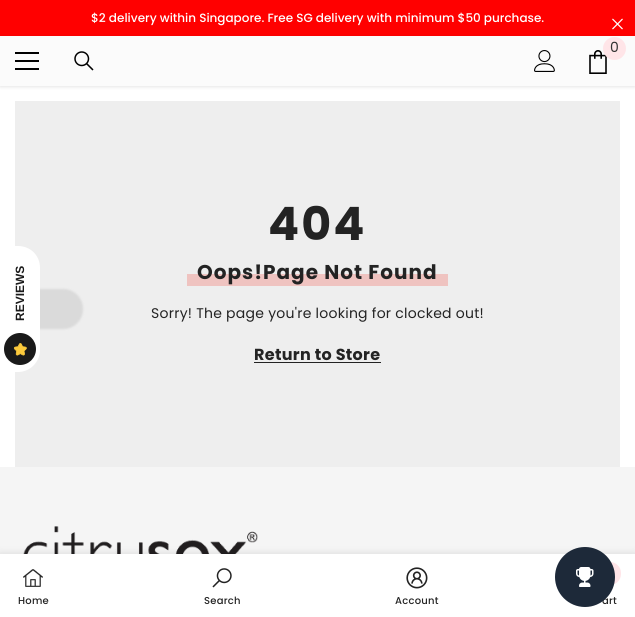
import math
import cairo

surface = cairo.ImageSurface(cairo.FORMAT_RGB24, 635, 617)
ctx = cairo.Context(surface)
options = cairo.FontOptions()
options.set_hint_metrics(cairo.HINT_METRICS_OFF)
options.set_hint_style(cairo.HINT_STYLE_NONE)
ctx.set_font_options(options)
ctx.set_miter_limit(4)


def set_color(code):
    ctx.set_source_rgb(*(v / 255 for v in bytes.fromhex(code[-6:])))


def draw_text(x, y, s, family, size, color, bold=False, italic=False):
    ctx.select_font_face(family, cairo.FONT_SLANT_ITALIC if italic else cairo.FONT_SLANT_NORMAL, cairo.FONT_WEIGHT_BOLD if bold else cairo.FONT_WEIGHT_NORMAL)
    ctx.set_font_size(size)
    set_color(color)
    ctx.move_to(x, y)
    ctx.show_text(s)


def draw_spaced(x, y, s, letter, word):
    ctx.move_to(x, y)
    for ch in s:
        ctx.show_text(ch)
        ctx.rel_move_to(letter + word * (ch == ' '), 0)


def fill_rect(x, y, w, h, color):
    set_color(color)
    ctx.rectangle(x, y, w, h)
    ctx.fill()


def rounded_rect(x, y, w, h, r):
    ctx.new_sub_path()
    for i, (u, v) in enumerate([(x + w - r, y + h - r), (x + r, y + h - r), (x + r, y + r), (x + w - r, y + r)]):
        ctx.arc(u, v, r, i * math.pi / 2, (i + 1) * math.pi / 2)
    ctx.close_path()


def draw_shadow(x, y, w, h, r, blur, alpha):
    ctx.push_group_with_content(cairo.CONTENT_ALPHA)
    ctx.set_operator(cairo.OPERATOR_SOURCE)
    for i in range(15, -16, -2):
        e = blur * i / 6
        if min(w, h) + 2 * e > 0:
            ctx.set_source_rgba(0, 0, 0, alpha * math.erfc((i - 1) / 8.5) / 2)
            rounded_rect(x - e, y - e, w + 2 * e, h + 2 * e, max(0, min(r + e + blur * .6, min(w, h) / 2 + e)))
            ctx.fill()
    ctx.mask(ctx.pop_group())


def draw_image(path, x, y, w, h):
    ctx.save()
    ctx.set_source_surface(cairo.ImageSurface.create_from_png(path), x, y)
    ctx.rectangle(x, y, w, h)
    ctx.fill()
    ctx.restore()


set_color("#ffffff")
ctx.paint()
fill_rect(0, 0, 635, 36, "#ff0000")
draw_text(91, 22, "$2 delivery within Singapore. Free SG delivery with minimum $50 purchase.", "Poppins Medium", 12, "#ffffff")
draw_image("assets/img1.png", 612, 18, 11, 12)
set_color("#000000")
draw_shadow(0, 37, 635, 50, 0, 1.5, 0.1)
fill_rect(0, 36, 635, 50, "#fbfbfb")
draw_image("assets/img2.png", 589, 50, 18, 24)
set_color("#ffe5e8")
ctx.arc(614.5, 48.5, 11.5, 0, 2 * math.pi)
ctx.fill()
ctx.select_font_face("Poppins")
ctx.set_font_size(14)
set_color("#323232")
draw_spaced(610, 52, "0", 0.25, 0)
draw_image("assets/img3.png", 534, 50, 21, 22)
fill_rect(15, 60, 24, 2, "#000000")
fill_rect(15, 52, 24, 2, "#000000")
fill_rect(15, 68, 24, 2, "#000000")
draw_image("assets/img4.png", 74, 51, 20, 20)
fill_rect(15, 101, 605, 366, "#eeeeee")
ctx.select_font_face("Poppins", cairo.FONT_SLANT_NORMAL, cairo.FONT_WEIGHT_BOLD)
ctx.set_font_size(46)
set_color("#232323")
draw_spaced(268, 240, "404", 2, 0)
fill_rect(187, 274, 261, 12, "#efc3c0")
ctx.set_font_size(20)
set_color("#232323")
draw_spaced(197, 279, "Oops!Page Not Found", 1, 0)
ctx.select_font_face("Poppins")
ctx.set_font_size(14)
draw_spaced(151, 318, "Sorry! The page you're looking for clocked out!", 0.25, 0)
ctx.select_font_face("Poppins", cairo.FONT_SLANT_NORMAL, cairo.FONT_WEIGHT_BOLD)
ctx.set_font_size(16)
draw_spaced(254, 360, "Return to Store", 0.3, 0)
fill_rect(254, 362, 127, 1, "#232323")
fill_rect(0, 467, 635, 87, "#f5f5f5")
draw_image("assets/img5.png", 23, 526, 235, 28)
set_color("#000000")
draw_shadow(0, 554, 635, 63, 0, 4.5, 0.12)
fill_rect(0, 554, 635, 63, "#ffffff")
draw_image("assets/img6.png", 23, 569, 20, 18)
ctx.select_font_face("Poppins Medium")
ctx.set_font_size(10)
set_color("#232323")
draw_spaced(18, 604, "Home", 0.25, 0)
draw_image("assets/img7.png", 212, 568, 20, 20)
draw_spaced(204, 604, "Search", 0.25, 0)
draw_image("assets/img8.png", 406, 567, 22, 22)
draw_spaced(395, 604, "Account", 0.25, 0)
set_color("#ffe5e8")
rounded_rect(599, 562, 22, 23, 11)
ctx.fill()
draw_image("assets/img9.png", 612, 587, 1, 1)
set_color("#232323")
draw_spaced(602, 604, "art", 0.25, 0)
set_color("#dadada")
draw_shadow(-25, 289, 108, 40, 22, 1, 1)
set_color("#ffffff")
ctx.new_path()
ctx.move_to(0, 372)
ctx.line_to(0, 246)
ctx.line_to(18, 246)
ctx.curve_to(30, 246, 40, 255, 40, 268)
ctx.line_to(40, 350)
ctx.curve_to(40, 362, 30, 372, 18, 372)
ctx.close_path()
ctx.fill()
ctx.save()
ctx.translate(24, 321)
ctx.rotate(-90 * math.pi / 180)
draw_text(0, 0, "REVIEWS", "Liberation Sans", 12, "#1a1a1a", bold=True)
ctx.restore()
set_color("#1a1a1a")
ctx.new_path()
ctx.arc(20, 349, 16, 0, 2 * math.pi)
ctx.fill()
draw_image("assets/img10.png", 13, 343, 14, 13)
set_color("#1d2939")
ctx.arc(585, 577, 30, 0, 2 * math.pi)
ctx.fill()
draw_image("assets/img11.png", 576, 567, 18, 20)
surface.write_to_png("output.png")
